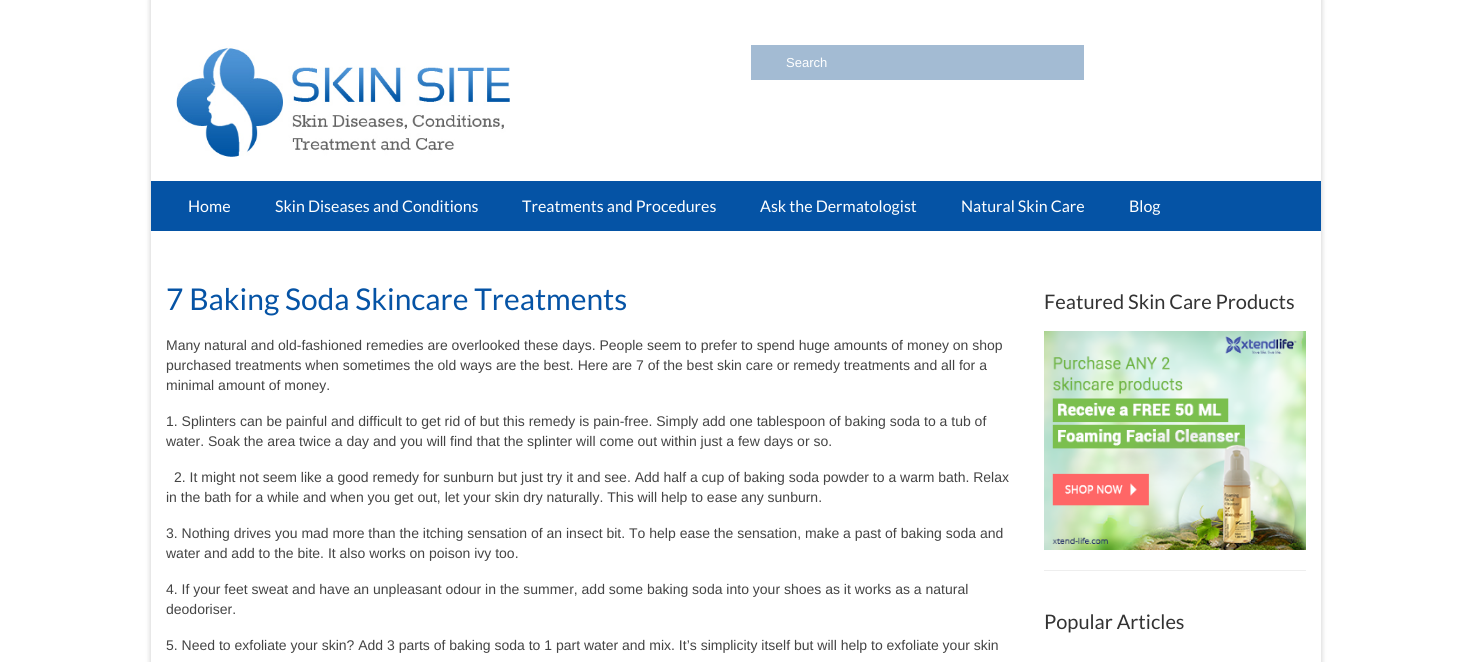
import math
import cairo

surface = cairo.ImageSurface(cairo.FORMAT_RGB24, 1472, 662)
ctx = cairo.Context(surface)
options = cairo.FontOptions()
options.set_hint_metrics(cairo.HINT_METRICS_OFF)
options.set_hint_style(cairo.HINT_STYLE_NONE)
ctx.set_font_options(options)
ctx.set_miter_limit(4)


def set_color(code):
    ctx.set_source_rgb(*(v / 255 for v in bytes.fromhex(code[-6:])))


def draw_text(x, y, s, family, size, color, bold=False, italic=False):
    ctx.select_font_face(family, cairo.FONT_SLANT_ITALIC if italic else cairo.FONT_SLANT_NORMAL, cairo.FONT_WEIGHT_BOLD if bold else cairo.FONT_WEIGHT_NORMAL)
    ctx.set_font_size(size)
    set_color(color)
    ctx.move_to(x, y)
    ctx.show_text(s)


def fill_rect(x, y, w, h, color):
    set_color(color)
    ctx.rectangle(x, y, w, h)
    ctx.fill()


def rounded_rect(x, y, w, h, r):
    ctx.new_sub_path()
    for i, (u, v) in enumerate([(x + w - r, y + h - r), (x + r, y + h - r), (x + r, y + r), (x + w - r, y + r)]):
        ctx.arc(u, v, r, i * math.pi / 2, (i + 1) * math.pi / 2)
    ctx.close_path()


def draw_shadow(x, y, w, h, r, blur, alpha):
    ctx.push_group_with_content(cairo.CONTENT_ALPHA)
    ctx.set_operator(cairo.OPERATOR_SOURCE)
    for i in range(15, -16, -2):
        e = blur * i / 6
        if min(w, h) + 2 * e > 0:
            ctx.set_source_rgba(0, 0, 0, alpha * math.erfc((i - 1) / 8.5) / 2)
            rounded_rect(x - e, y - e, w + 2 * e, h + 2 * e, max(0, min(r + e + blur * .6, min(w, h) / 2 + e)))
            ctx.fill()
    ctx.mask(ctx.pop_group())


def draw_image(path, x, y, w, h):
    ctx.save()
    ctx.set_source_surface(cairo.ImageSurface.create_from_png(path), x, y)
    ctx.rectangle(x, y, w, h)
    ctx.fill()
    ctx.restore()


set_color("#ffffff")
ctx.paint()
ctx.save()
ctx.set_fill_rule(cairo.FILL_RULE_EVEN_ODD)
ctx.new_path()
ctx.move_to(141, 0)
ctx.line_to(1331, 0)
ctx.line_to(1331, 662)
ctx.line_to(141, 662)
ctx.close_path()
ctx.move_to(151, 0)
ctx.line_to(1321, 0)
ctx.line_to(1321, 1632)
ctx.line_to(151, 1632)
ctx.close_path()
ctx.clip()
set_color("#000000")
draw_shadow(150, -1, 1172, 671, 0, 2.5, 0.16)
ctx.restore()
draw_image("assets/img1.png", 176, 46, 334, 111)
fill_rect(751, 45, 333, 35, "#a3bbd3")
draw_text(786, 67, "Search", "Liberation Sans", 13, "#ffffff")
fill_rect(151, 181, 1170, 50, "#0553a5")
draw_text(188, 212, "Home", "Lato", 16, "#ffffff")
draw_text(275, 212, "Skin Diseases and Conditions", "Lato", 16, "#ffffff")
draw_text(522, 212, "Treatments and Procedures", "Lato", 16, "#ffffff")
draw_text(760, 212, "Ask the Dermatologist", "Lato", 16, "#ffffff")
draw_text(961, 212, "Natural Skin Care", "Lato", 16, "#ffffff")
draw_text(1129, 212, "Blog", "Lato", 16, "#ffffff")
draw_text(166, 310, "7 Baking Soda Skincare Treatments", "Lato", 30, "#0553a5")
draw_text(166, 350, "Many natural and old-fashioned remedies are overlooked these days. People seem to prefer to spend huge amounts of money on shop", "Liberation Sans", 14, "#444444")
draw_text(166, 370, "purchased treatments when sometimes the old ways are the best. Here are 7 of the best skin care or remedy treatments and all for a", "Liberation Sans", 14, "#444444")
draw_text(166, 390, "minimal amount of money.", "Liberation Sans", 14, "#444444")
draw_text(166, 426, "1. Splinters can be painful and difficult to get rid of but this remedy is pain-free. Simply add one tablespoon of baking soda to a tub of", "Liberation Sans", 14, "#444444")
draw_text(166, 446, "water. Soak the area twice a day and you will find that the splinter will come out within just a few days or so.", "Liberation Sans", 14, "#444444")
draw_text(174, 482, "2. It might not seem like a good remedy for sunburn but just try it and see. Add half a cup of baking soda powder to a warm bath. Relax", "Liberation Sans", 14, "#444444")
draw_text(166, 502, "in the bath for a while and when you get out, let your skin dry naturally. This will help to ease any sunburn.", "Liberation Sans", 14, "#444444")
draw_text(166, 538, "3. Nothing drives you mad more than the itching sensation of an insect bit. To help ease the sensation, make a past of baking soda and", "Liberation Sans", 14, "#444444")
draw_text(166, 558, "water and add to the bite. It also works on poison ivy too.", "Liberation Sans", 14, "#444444")
draw_text(166, 594, "4. If your feet sweat and have an unpleasant odour in the summer, add some baking soda into your shoes as it works as a natural", "Liberation Sans", 14, "#444444")
draw_text(166, 614, "deodoriser.", "Liberation Sans", 14, "#444444")
draw_text(166, 650, "5. Need to exfoliate your skin? Add 3 parts of baking soda to 1 part water and mix. It’s simplicity itself but will help to exfoliate your skin", "Liberation Sans", 14, "#444444")
draw_text(1044, 309, "Featured Skin Care Products", "Lato", 20, "#333333")
draw_image("assets/img2.png", 1044, 331, 262, 219)
fill_rect(1044, 570, 262, 1, "#eeeeee")
draw_text(1044, 629, "Popular Articles", "Lato", 20, "#333333")
surface.write_to_png("output.png")
